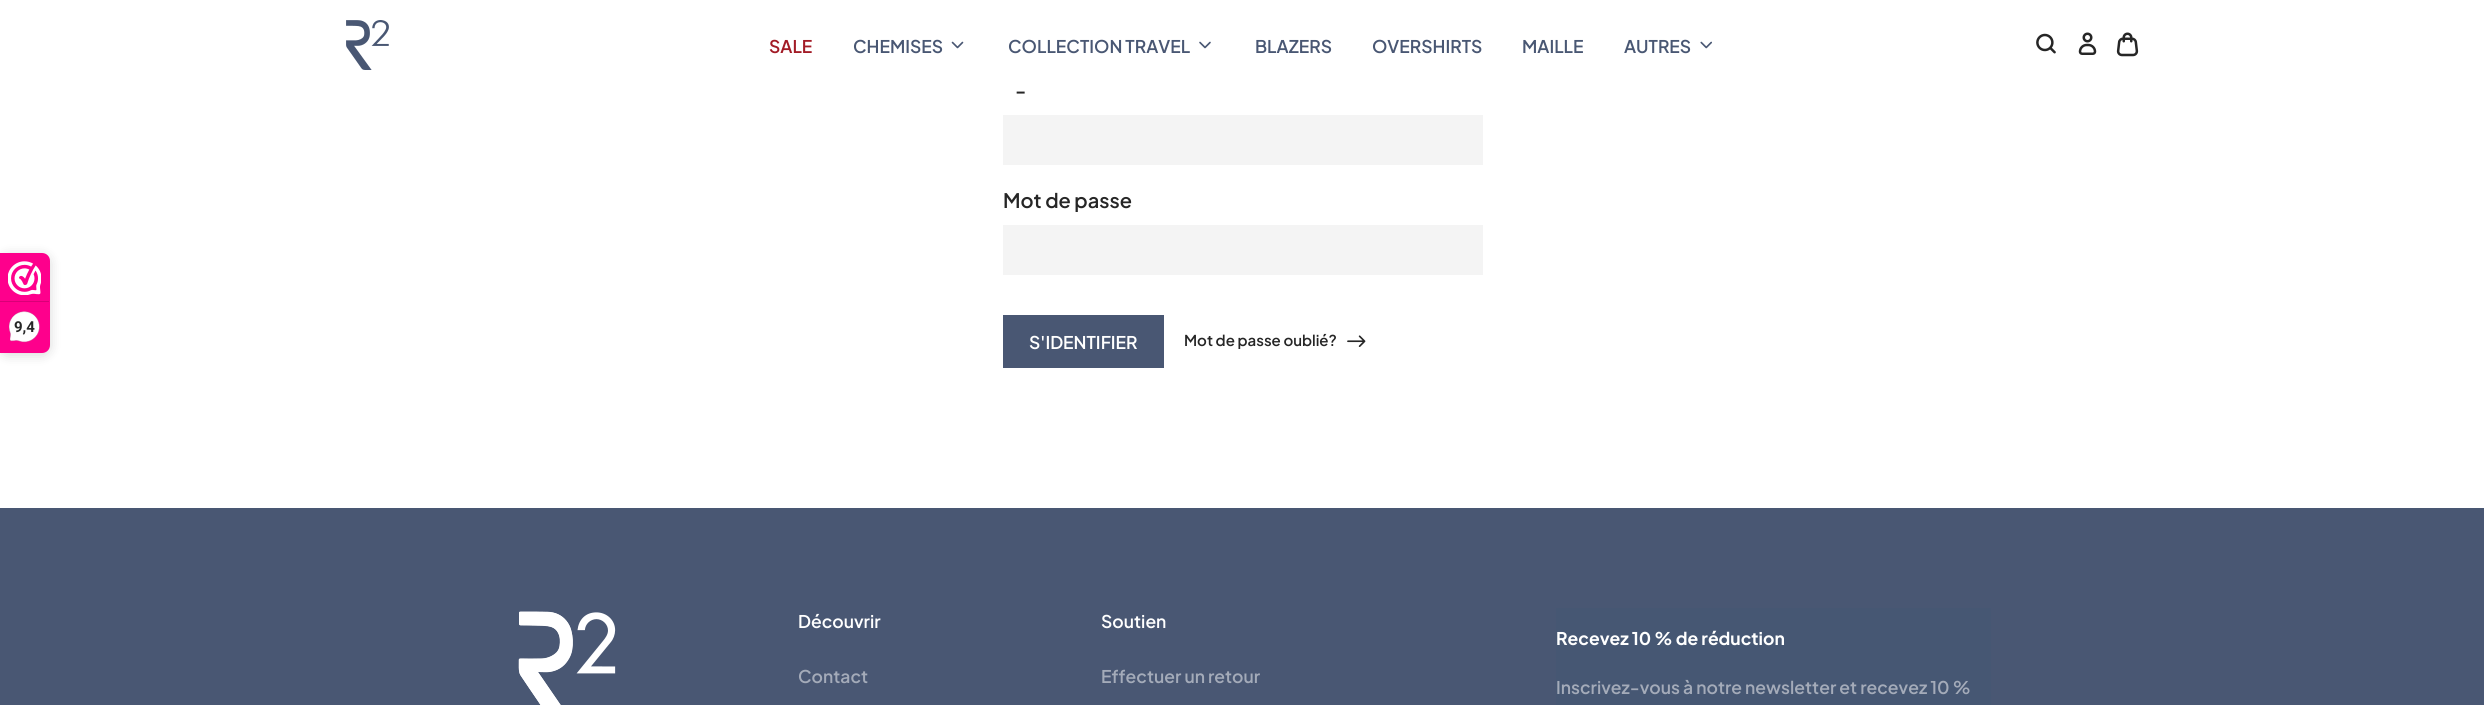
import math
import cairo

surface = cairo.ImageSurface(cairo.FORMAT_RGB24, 2484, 705)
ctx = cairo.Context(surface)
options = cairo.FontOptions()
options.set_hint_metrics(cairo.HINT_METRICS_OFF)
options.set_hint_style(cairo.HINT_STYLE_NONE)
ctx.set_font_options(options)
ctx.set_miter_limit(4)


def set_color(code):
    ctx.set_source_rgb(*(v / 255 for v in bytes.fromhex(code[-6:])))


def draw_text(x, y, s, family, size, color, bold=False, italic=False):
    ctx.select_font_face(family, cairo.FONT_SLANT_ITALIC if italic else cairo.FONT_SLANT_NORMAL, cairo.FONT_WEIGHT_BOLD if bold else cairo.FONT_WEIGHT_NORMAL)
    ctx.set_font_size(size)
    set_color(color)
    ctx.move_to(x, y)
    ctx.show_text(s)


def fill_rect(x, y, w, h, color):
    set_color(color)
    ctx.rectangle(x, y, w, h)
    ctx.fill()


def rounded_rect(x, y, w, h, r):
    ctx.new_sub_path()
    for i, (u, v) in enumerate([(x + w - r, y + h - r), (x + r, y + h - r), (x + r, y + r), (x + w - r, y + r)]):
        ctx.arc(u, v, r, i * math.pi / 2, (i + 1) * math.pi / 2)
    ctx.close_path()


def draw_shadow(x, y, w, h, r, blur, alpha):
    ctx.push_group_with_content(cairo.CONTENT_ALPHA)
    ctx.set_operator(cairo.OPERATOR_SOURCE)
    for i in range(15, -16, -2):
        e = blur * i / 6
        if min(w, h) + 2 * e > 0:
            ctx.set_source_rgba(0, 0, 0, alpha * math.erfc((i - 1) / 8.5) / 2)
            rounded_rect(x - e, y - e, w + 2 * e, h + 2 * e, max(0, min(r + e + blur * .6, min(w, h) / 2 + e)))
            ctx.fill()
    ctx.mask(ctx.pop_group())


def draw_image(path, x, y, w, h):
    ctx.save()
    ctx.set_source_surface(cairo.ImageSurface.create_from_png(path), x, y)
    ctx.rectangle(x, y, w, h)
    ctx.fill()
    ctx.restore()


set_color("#ffffff")
ctx.paint()
draw_image("assets/img1.png", 346, 20, 43, 50)
draw_text(769, 53, "SALE", "Plus Jakarta Sans SemiBold", 17.5, "#a21b26")
draw_text(853, 53, "CHEMISES", "Plus Jakarta Sans SemiBold", 17.5, "#495773")
draw_image("assets/img2.png", 951, 41, 13, 8)
draw_text(1008, 53, "COLLECTION TRAVEL", "Plus Jakarta Sans SemiBold", 17.5, "#495773")
draw_image("assets/img3.png", 1199, 41, 12, 8)
draw_text(1255, 53, "BLAZERS", "Plus Jakarta Sans SemiBold", 17.5, "#495773")
draw_text(1372, 53, "OVERSHIRTS", "Plus Jakarta Sans SemiBold", 17.5, "#495773")
draw_text(1522, 53, "MAILLE", "Plus Jakarta Sans SemiBold", 17.5, "#495773")
draw_text(1624, 53, "AUTRES", "Plus Jakarta Sans SemiBold", 17.5, "#495773")
draw_image("assets/img4.png", 1700, 41, 12, 8)
draw_image("assets/img5.png", 2036, 33, 20, 21)
draw_image("assets/img6.png", 2078, 32, 19, 23)
draw_image("assets/img7.png", 2116, 32, 23, 25)
set_color("#000000")
draw_shadow(0, 255, 50, 100, 8, 6, 0.15)
set_color("#fe008c")
ctx.new_path()
ctx.move_to(0, 253)
ctx.line_to(42, 253)
ctx.curve_to(46.5, 253, 50, 256.5, 50, 261)
ctx.line_to(50, 345)
ctx.curve_to(50, 349.5, 46.5, 353, 42, 353)
ctx.line_to(0, 353)
ctx.close_path()
ctx.fill()
draw_image("assets/img8.png", 8, 261, 33, 34)
fill_rect(0, 301, 49, 1, "#d80077")
draw_image("assets/img9.png", 9, 311, 31, 32)
draw_text(14, 332, "9,4", "Roboto", 15, "#262626", bold=True)
draw_text(1015, 98, "-", "Plus Jakarta Sans SemiBold", 20, "#262626")
fill_rect(1003, 115, 480, 50, "#f4f4f4")
draw_text(1003, 208, "Mot de passe", "Plus Jakarta Sans SemiBold", 20, "#262626")
fill_rect(1003, 225, 480, 50, "#f4f4f4")
fill_rect(1003, 315, 161, 53, "#495773")
draw_text(1029, 349, "S'IDENTIFIER", "Plus Jakarta Sans SemiBold", 17.5, "#ffffff")
draw_text(1184, 346, "Mot de passe oublié?", "Plus Jakarta Sans SemiBold", 15, "#262626")
draw_image("assets/img10.png", 1347, 335, 19, 12)
fill_rect(0, 508, 2484, 197, "#495773")
draw_image("assets/img11.png", 518, 611, 98, 94)
draw_text(798, 628, "Découvrir", "Plus Jakarta Sans SemiBold", 17.5, "#ffffff")
draw_text(798, 683, "Contact", "Plus Jakarta Sans SemiBold", 17.5, "#a4abb9")
draw_text(1101, 628, "Soutien", "Plus Jakarta Sans SemiBold", 17.5, "#ffffff")
draw_text(1101, 683, "Effectuer un retour", "Plus Jakarta Sans SemiBold", 17.5, "#a4abb9")
fill_rect(1556, 608, 435, 97, "#465773")
draw_text(1556, 645, "Recevez 10 % de réduction", "Plus Jakarta Sans", 17.5, "#ffffff", bold=True)
draw_text(1556, 694, "Inscrivez-vous à notre newsletter et recevez 10 %", "Plus Jakarta Sans SemiBold", 17.5, "#a4abb9")
surface.write_to_png("output.png")
